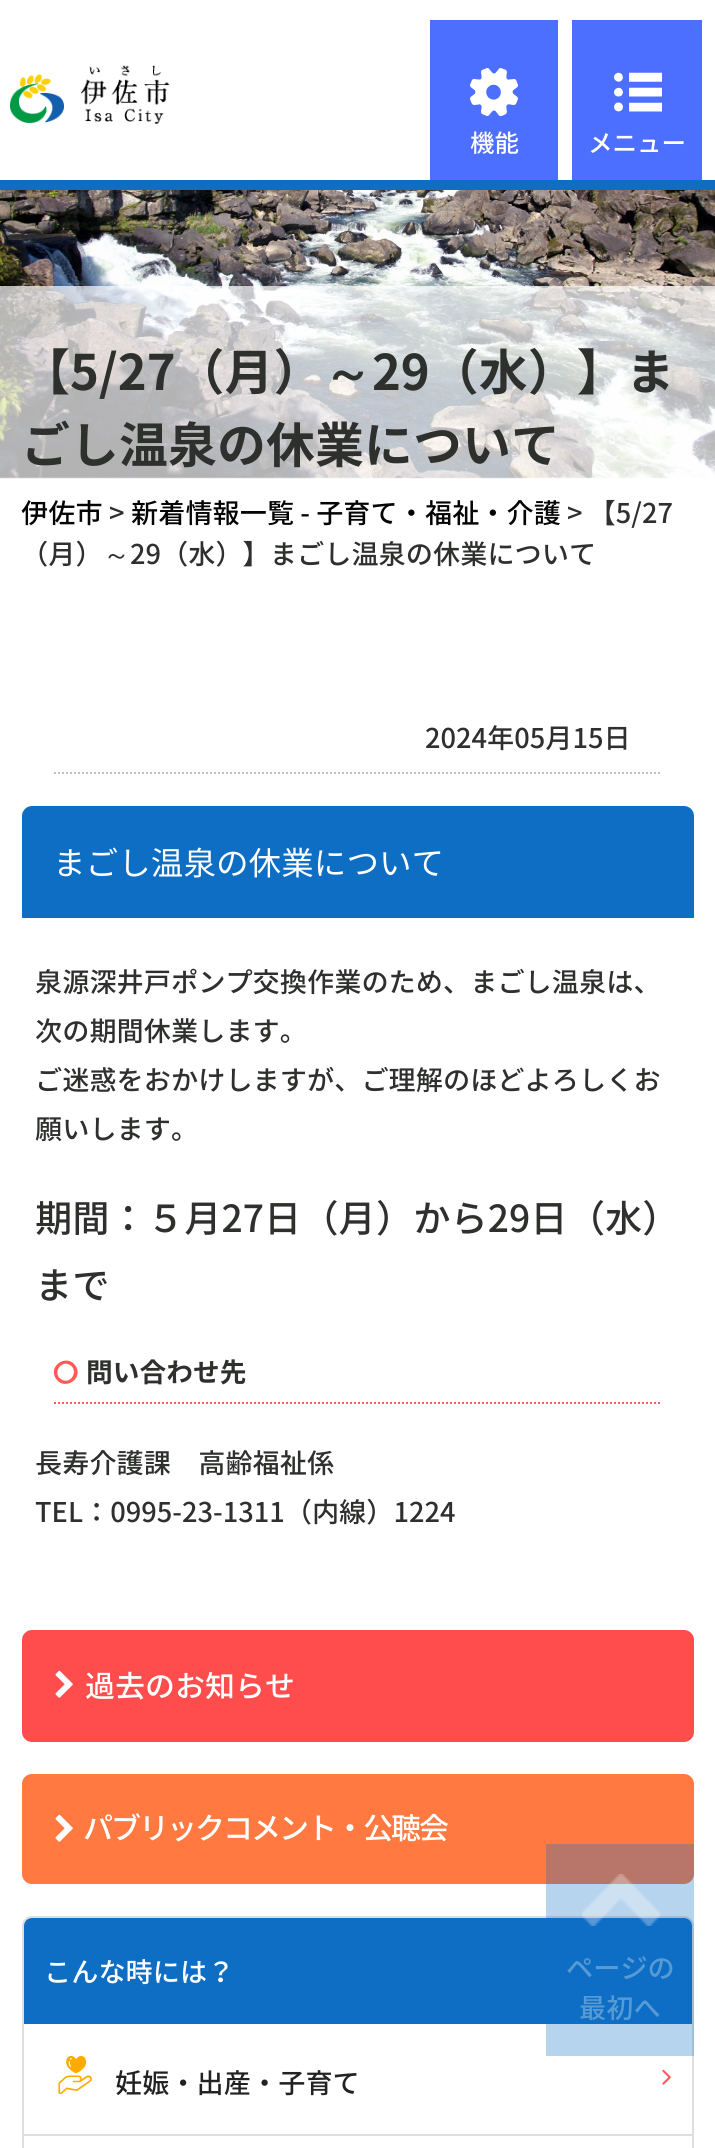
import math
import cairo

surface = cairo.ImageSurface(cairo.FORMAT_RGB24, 715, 2148)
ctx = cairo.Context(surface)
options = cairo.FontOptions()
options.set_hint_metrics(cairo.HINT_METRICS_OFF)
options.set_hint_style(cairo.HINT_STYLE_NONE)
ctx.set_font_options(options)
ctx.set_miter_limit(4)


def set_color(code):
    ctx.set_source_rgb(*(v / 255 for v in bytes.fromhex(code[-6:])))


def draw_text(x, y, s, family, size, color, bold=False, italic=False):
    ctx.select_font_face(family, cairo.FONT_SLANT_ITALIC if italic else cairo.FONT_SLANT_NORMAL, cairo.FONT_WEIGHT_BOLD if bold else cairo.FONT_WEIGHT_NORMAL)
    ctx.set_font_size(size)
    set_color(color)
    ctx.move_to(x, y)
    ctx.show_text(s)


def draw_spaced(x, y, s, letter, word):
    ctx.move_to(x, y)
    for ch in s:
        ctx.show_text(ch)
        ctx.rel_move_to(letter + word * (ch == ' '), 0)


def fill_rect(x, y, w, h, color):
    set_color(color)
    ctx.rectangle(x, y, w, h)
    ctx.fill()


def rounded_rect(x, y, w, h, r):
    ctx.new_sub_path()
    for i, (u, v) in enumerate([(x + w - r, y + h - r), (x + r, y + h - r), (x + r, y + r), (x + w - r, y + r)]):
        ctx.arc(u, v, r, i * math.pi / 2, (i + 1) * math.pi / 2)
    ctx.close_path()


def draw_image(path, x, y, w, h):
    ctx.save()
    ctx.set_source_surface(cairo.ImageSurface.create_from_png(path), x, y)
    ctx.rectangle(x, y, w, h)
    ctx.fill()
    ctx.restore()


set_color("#ffffff")
ctx.paint()
fill_rect(0, 180, 715, 10, "#0e6ec4")
draw_image("assets/img1.png", 10, 65, 160, 59)
fill_rect(430, 20, 128, 160, "#4d6fff")
draw_image("assets/img2.png", 470, 68, 48, 48)
draw_text(470, 152, "機能", "Noto Sans JP Medium", 24.5, "#ffffff")
fill_rect(572, 20, 130, 160, "#4d6fff")
draw_image("assets/img3.png", 614, 72, 48, 40)
draw_text(588, 152, "メニュー", "Noto Sans JP Medium", 24.5, "#ffffff")
draw_image("assets/img4.png", 0, 190, 715, 289)
ctx.set_source_rgba(1, 1, 1, 0.7)
ctx.rectangle(0, 286, 715, 193)
ctx.fill()
draw_text(21, 390, "【5/27（月）", "Noto Sans JP", 49, "#2e302e", bold=True)
draw_text(323, 390, "～", "WenQuanYi Zen Hei", 49, "#2e302e", bold=True)
draw_text(372, 390, "29（水）】ま", "Noto Sans JP", 49, "#2e302e", bold=True)
draw_text(21, 463, "ごし温泉の休業について", "Noto Sans JP", 49, "#2e302e", bold=True)
draw_text(21, 523, "伊佐市", "Noto Sans JP Medium", 27.2, "#040404")
draw_text(109, 523, ">", "Noto Sans JP Medium", 27.2, "#2e302e")
draw_text(131, 523, "新着情報一覧 - 子育て・福祉・介護", "Noto Sans JP Medium", 27.2, "#040404")
draw_text(567, 523, "> 【5/27", "Noto Sans JP Medium", 27.2, "#2e302e")
draw_text(21, 564, "（月）", "Noto Sans JP Medium", 27.2, "#2e302e")
draw_text(103, 564, "～", "WenQuanYi Zen Hei Medium", 27.2, "#2e302e")
draw_text(130, 564, "29（水）】まごし温泉の休業について", "Noto Sans JP Medium", 27.2, "#2e302e")
ctx.new_path()
ctx.move_to(54, 773)
ctx.line_to(662, 773)
set_color("#c1c1c1")
ctx.set_dash([2, 2])
ctx.stroke()
draw_text(425, 748, "2024年05月15日", "Noto Sans JP Medium", 27.2, "#2e302e")
set_color("#0e6ec4")
ctx.new_path()
ctx.move_to(32, 806)
ctx.line_to(684, 806)
ctx.curve_to(689.5, 806, 694, 810.5, 694, 816)
ctx.line_to(694, 924)
ctx.line_to(22, 924)
ctx.line_to(22, 816)
ctx.curve_to(22, 810.5, 26.5, 806, 32, 806)
ctx.close_path()
ctx.fill()
fill_rect(22, 918, 672, 6, "#ffffff")
draw_text(53, 875, "まごし温泉の休業について", "Noto Sans JP", 32.6, "#ffffff")
draw_text(35, 992, "泉源深井戸ポンプ交換作業のため、まごし温泉は、", "Noto Sans JP Medium", 27.2, "#2e302e")
draw_text(35, 1041, "次の期間休業します。", "Noto Sans JP Medium", 27.2, "#2e302e")
draw_text(35, 1090, "ご迷惑をおかけしますが、ご理解のほどよろしくお", "Noto Sans JP Medium", 27.2, "#2e302e")
draw_text(35, 1139, "願いします。", "Noto Sans JP Medium", 27.2, "#2e302e")
draw_text(35, 1232, "期間：５月27日（月）から29日（水）", "Noto Sans JP Medium", 37.3, "#2e302e")
draw_text(35, 1299, "まで", "Noto Sans JP Medium", 37.3, "#2e302e")
ctx.new_path()
ctx.move_to(54, 1403)
ctx.line_to(662, 1403)
set_color("#ff5959")
ctx.stroke()
ctx.new_path()
ctx.move_to(70, 1365)
ctx.curve_to(60.5, 1359.5, 52, 1374, 61.5, 1379.5)
ctx.curve_to(71, 1385, 79, 1370.5, 70, 1365)
ctx.close_path()
ctx.move_to(76, 1366.5)
ctx.curve_to(83.5, 1379.5, 63.5, 1391.5, 55.5, 1378)
ctx.curve_to(48, 1365, 68, 1353, 76, 1366.5)
ctx.close_path()
ctx.fill()
draw_text(86, 1382, "問い合わせ先", "Noto Sans JP", 26.75, "#2e302e", bold=True)
draw_text(35, 1473, "長寿介護課　高齢福祉係", "Noto Sans JP Medium", 27.2, "#2e302e")
draw_text(35, 1522, "TEL：0995-23-1311（内線）1224", "Noto Sans JP Medium", 27.2, "#2e302e")
set_color("#ff4d4d")
rounded_rect(22, 1630, 672, 112, 10)
ctx.fill()
draw_image("assets/img5.png", 55, 1670, 18, 28)
draw_text(85, 1697, "過去のお知らせ", "Noto Sans JP Medium", 30, "#ffffff")
set_color("#ff7941")
rounded_rect(22, 1774, 672, 110, 10)
ctx.fill()
draw_image("assets/img6.png", 55, 1814, 18, 28)
set_color("#ffffff")
draw_spaced(83, 1839, "パブリックコメント・公聴会", -2, 0)
rounded_rect(23, 1917, 670, 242, 9)
set_color("#dedede")
ctx.set_dash([])
ctx.stroke()
set_color("#0e6ec4")
ctx.new_path()
ctx.move_to(32, 1918)
ctx.line_to(684, 1918)
ctx.curve_to(688.5, 1918, 692, 1921.5, 692, 1926)
ctx.line_to(692, 2024)
ctx.line_to(24, 2024)
ctx.line_to(24, 1926)
ctx.curve_to(24, 1921.5, 27.5, 1918, 32, 1918)
ctx.close_path()
ctx.fill()
draw_text(44, 1982, "こんな時には？", "Noto Sans JP Medium", 27.2, "#ffffff")
fill_rect(24, 2134, 668, 2, "#dedede")
draw_image("assets/img7.png", 58, 2056, 34, 38)
draw_text(115, 2093, "妊娠・出産・子育て", "Noto Sans JP Medium", 27.2, "#222222")
draw_image("assets/img8.png", 662, 2069, 9, 16)
ctx.set_source_rgba(0.055, 0.431, 0.769, 0.3)
ctx.rectangle(546, 1844, 148, 212)
ctx.fill()
draw_image("assets/img9.png", 582, 1874, 78, 52)
draw_text(566, 1978, "ページの", "Noto Sans JP Medium", 27.2, "#569ad6")
draw_text(579, 2018, "最初へ", "Noto Sans JP Medium", 27.2, "#569ad6")
surface.write_to_png("output.png")
